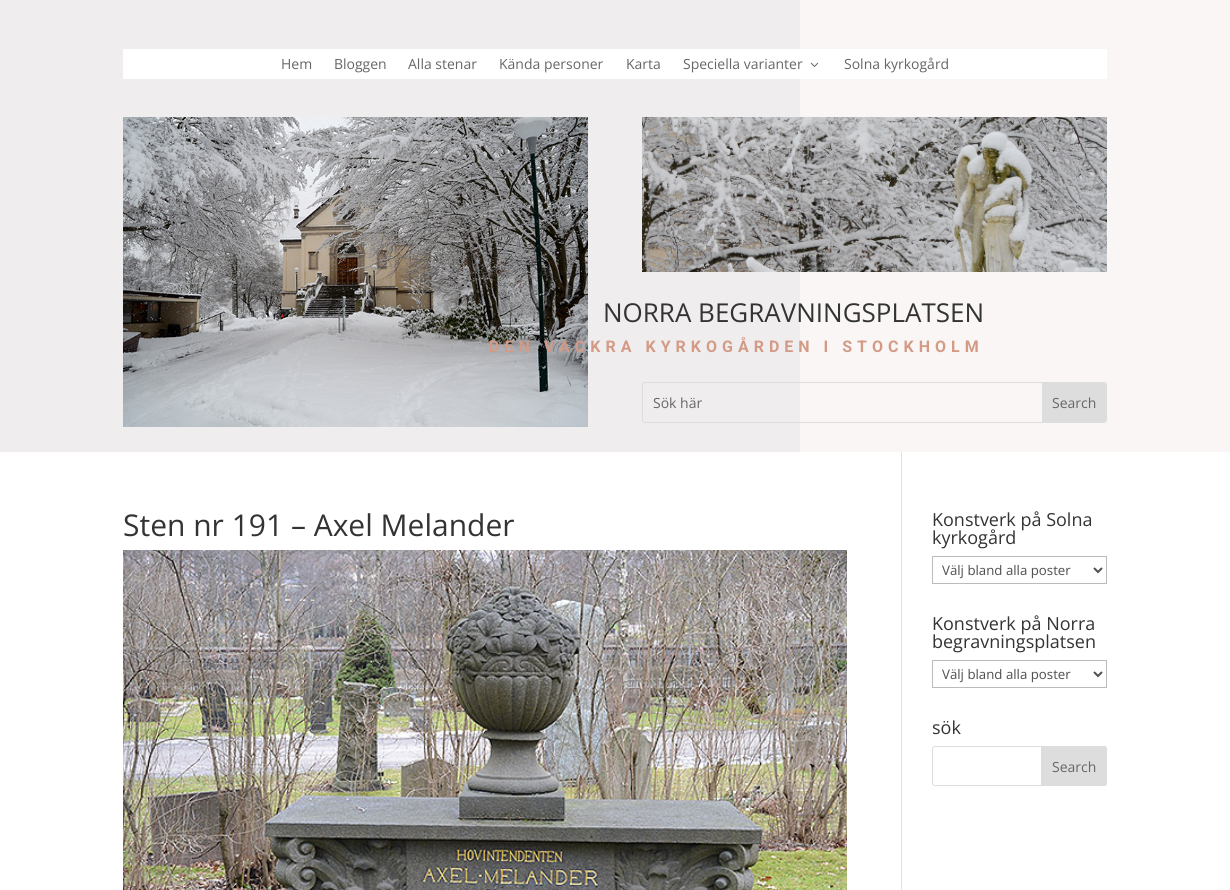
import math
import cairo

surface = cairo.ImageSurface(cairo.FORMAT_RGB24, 1230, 890)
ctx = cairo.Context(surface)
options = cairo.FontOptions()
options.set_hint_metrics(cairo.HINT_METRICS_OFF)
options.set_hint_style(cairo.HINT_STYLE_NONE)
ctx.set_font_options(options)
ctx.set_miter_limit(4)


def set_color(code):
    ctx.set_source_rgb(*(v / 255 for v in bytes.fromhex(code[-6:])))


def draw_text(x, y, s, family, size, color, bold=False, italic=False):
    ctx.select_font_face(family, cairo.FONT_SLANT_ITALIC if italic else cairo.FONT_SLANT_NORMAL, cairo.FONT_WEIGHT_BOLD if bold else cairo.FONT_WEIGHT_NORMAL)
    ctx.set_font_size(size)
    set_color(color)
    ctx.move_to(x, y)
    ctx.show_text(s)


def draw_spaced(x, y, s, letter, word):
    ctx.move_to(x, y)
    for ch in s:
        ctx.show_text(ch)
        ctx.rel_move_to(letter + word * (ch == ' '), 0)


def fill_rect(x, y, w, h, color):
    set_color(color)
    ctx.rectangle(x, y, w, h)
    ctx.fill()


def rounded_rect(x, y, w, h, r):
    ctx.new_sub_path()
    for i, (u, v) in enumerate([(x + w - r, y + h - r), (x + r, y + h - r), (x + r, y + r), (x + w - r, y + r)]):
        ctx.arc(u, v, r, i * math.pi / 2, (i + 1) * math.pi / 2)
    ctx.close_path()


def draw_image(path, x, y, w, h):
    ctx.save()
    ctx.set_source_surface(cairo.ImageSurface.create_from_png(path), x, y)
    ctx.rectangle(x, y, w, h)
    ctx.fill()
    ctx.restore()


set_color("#ffffff")
ctx.paint()
fill_rect(0, 0, 800, 452, "#f0edee")
fill_rect(800, 0, 430, 452, "#f9f6f5")
fill_rect(123, 49, 984, 30, "#ffffff")
draw_text(281, 69, "Hem", "Open Sans", 14, "#666666")
draw_text(334, 69, "Bloggen", "Open Sans", 14, "#666666")
draw_text(408, 69, "Alla stenar", "Open Sans", 14, "#666666")
draw_text(499, 69, "Kända personer", "Open Sans", 14, "#666666")
draw_text(626, 69, "Karta", "Open Sans", 14, "#666666")
draw_text(683, 69, "Speciella varianter", "Open Sans", 14, "#666666")
draw_image("assets/img1.png", 810, 62, 9, 5)
draw_text(844, 69, "Solna kyrkogård", "Open Sans", 14, "#666666")
draw_image("assets/img2.png", 123, 117, 465, 310)
draw_image("assets/img3.png", 642, 117, 465, 155)
draw_text(603, 322, "NORRA BEGRAVNINGSPLATSEN", "Open Sans", 26, "#333333")
ctx.select_font_face("Roboto", cairo.FONT_SLANT_NORMAL, cairo.FONT_WEIGHT_BOLD)
ctx.set_font_size(16)
set_color("#d39b86")
draw_spaced(489, 352, "DEN VACKRA KYRKOGÅRDEN I STOCKHOLM", 5, 0)
rounded_rect(642.5, 382.5, 464, 40, 2.5)
set_color("#dddddd")
ctx.set_line_width(1)
ctx.stroke()
draw_text(653, 408, "Sök här", "Open Sans", 14, "#666666")
set_color("#dddddd")
ctx.new_path()
ctx.move_to(1042, 383)
ctx.line_to(1104, 383)
ctx.curve_to(1105, 383, 1106, 384, 1106, 385)
ctx.line_to(1106, 420)
ctx.curve_to(1106, 421, 1105, 422, 1104, 422)
ctx.line_to(1042, 422)
ctx.close_path()
ctx.fill()
draw_text(1052, 408, "Search", "Open Sans", 14, "#666666")
fill_rect(901, 452, 1, 438, "#e2e2e2")
draw_text(123, 536, "Sten nr 191 – Axel Melander", "Open Sans", 30, "#333333")
draw_image("assets/img4.png", 123, 550, 724, 340)
draw_text(932, 526, "Konstverk på Solna", "Open Sans", 18, "#333333")
draw_text(932, 544, "kyrkogård", "Open Sans", 18, "#333333")
ctx.rectangle(932.5, 556.5, 174, 27)
set_color("#bbbbbb")
ctx.stroke()
ctx.new_path()
ctx.move_to(1094, 568)
ctx.line_to(1098, 572)
ctx.line_to(1102, 568)
set_color("#4e4e4e")
ctx.set_line_width(2)
ctx.stroke()
draw_text(942, 575, "Välj bland alla poster", "Open Sans", 13.25, "#4e4e4e")
draw_text(932, 630, "Konstverk på Norra", "Open Sans", 18, "#333333")
draw_text(932, 648, "begravningsplatsen", "Open Sans", 18, "#333333")
ctx.rectangle(932.5, 660.5, 174, 27)
set_color("#bbbbbb")
ctx.set_line_width(1)
ctx.stroke()
ctx.new_path()
ctx.move_to(1094, 672)
ctx.line_to(1098, 676)
ctx.line_to(1102, 672)
set_color("#4e4e4e")
ctx.set_line_width(2)
ctx.stroke()
draw_text(942, 679, "Välj bland alla poster", "Open Sans", 13.25, "#4e4e4e")
draw_text(932, 734, "sök", "Open Sans", 18, "#333333")
rounded_rect(932.5, 746.5, 174, 39, 2.5)
set_color("#dddddd")
ctx.set_line_width(1)
ctx.stroke()
ctx.new_path()
ctx.move_to(1041.5, 746.5)
ctx.line_to(1104, 746.5)
ctx.curve_to(1105.5, 746.5, 1106.5, 747.5, 1106.5, 749)
ctx.line_to(1106.5, 783)
ctx.curve_to(1106.5, 784.5, 1105.5, 785.5, 1104, 785.5)
ctx.line_to(1041.5, 785.5)
ctx.close_path()
ctx.fill_preserve()
ctx.stroke()
draw_text(1052, 772, "Search", "Open Sans", 14, "#666666")
surface.write_to_png("output.png")
